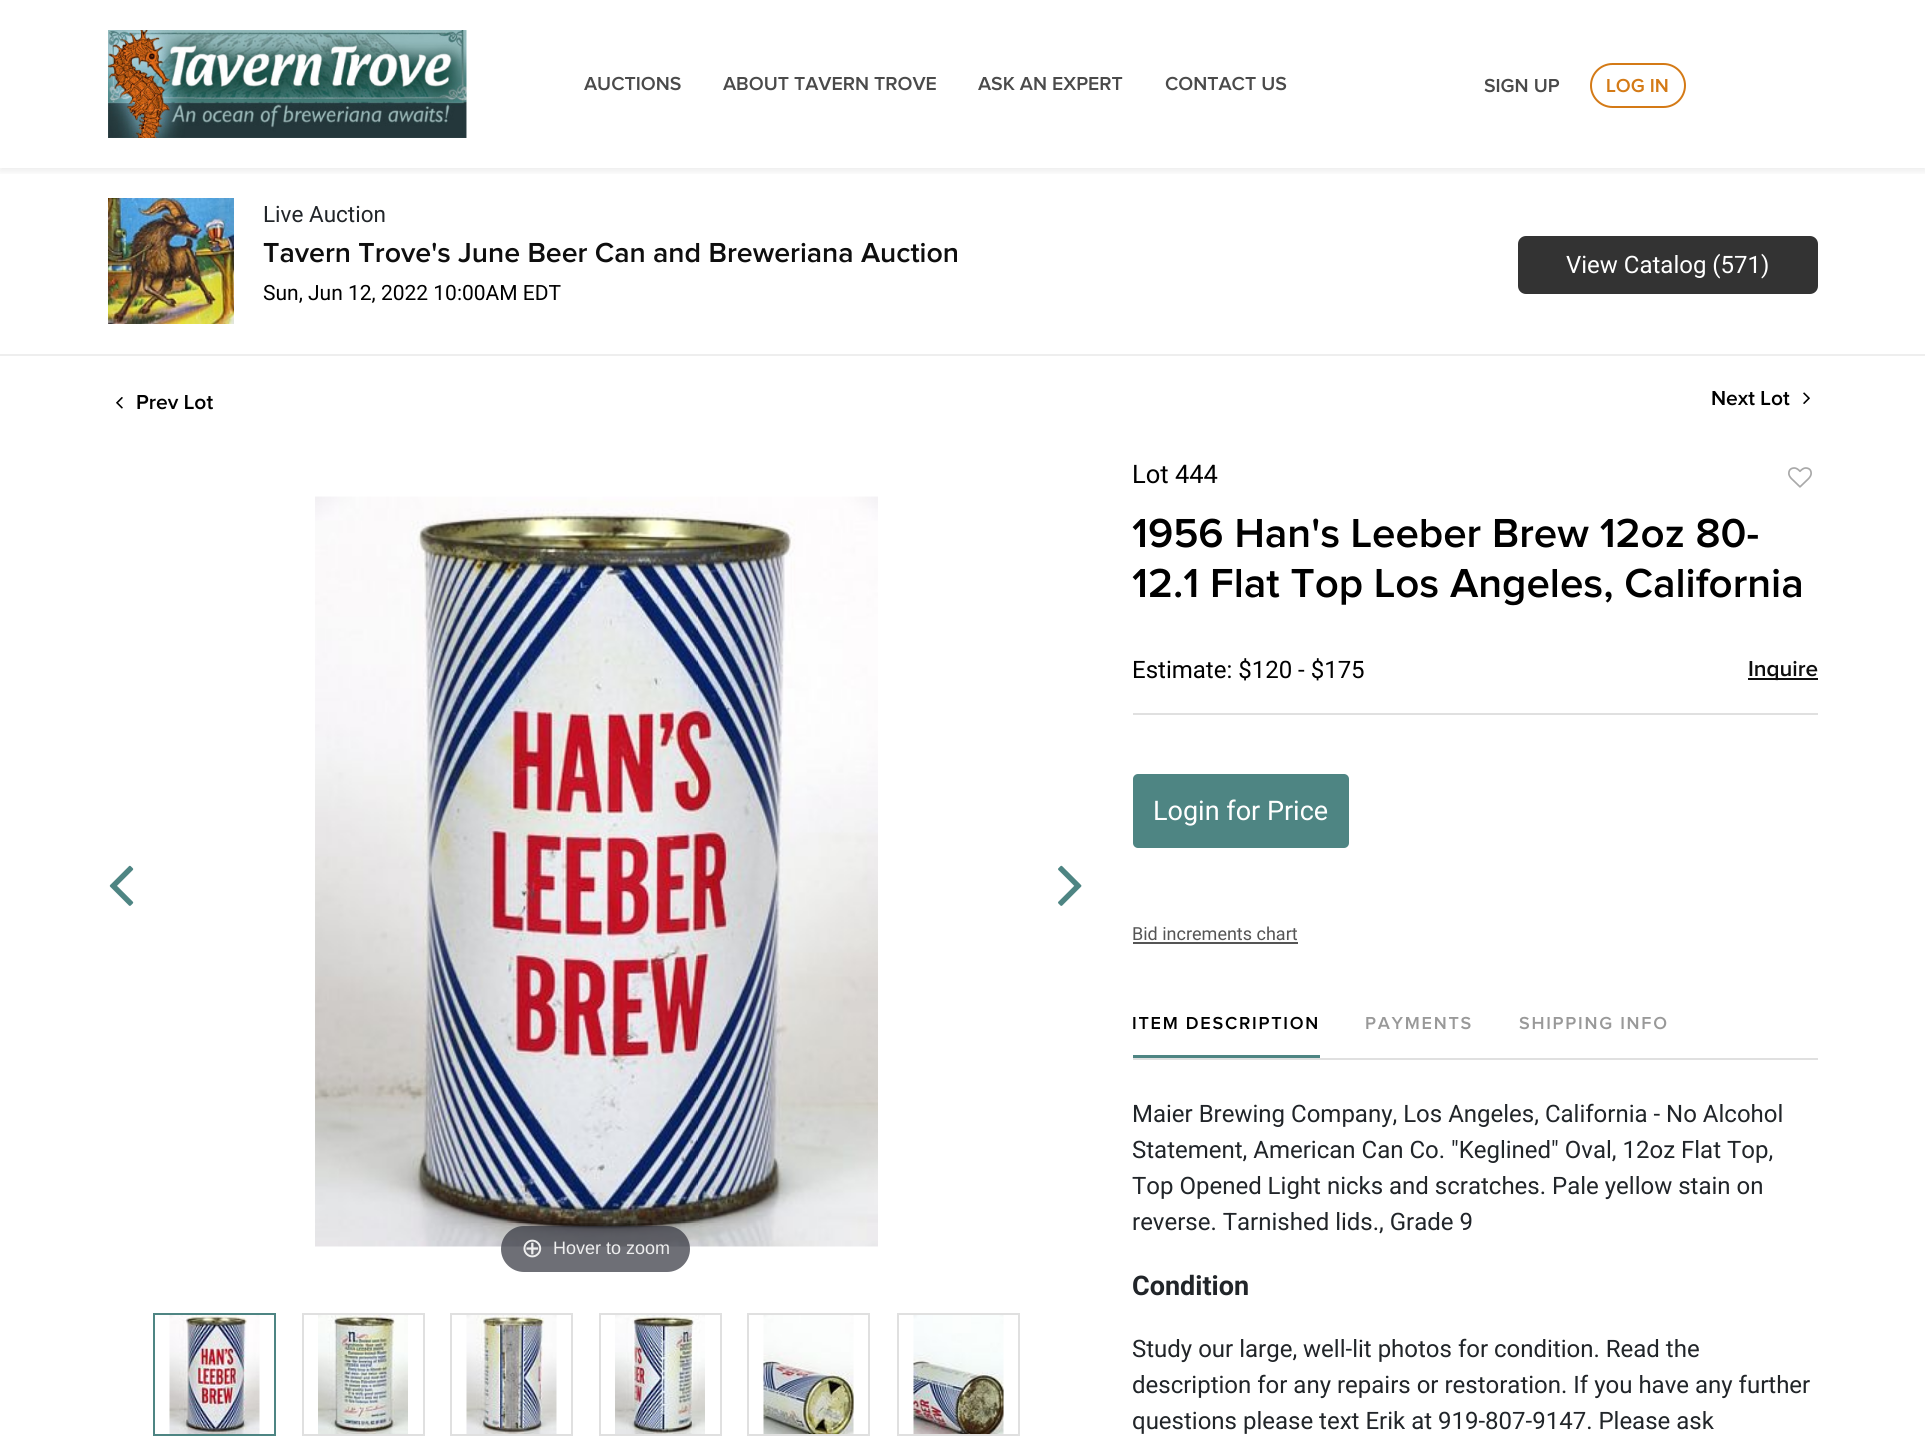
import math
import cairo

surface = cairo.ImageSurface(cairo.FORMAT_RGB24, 1925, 1436)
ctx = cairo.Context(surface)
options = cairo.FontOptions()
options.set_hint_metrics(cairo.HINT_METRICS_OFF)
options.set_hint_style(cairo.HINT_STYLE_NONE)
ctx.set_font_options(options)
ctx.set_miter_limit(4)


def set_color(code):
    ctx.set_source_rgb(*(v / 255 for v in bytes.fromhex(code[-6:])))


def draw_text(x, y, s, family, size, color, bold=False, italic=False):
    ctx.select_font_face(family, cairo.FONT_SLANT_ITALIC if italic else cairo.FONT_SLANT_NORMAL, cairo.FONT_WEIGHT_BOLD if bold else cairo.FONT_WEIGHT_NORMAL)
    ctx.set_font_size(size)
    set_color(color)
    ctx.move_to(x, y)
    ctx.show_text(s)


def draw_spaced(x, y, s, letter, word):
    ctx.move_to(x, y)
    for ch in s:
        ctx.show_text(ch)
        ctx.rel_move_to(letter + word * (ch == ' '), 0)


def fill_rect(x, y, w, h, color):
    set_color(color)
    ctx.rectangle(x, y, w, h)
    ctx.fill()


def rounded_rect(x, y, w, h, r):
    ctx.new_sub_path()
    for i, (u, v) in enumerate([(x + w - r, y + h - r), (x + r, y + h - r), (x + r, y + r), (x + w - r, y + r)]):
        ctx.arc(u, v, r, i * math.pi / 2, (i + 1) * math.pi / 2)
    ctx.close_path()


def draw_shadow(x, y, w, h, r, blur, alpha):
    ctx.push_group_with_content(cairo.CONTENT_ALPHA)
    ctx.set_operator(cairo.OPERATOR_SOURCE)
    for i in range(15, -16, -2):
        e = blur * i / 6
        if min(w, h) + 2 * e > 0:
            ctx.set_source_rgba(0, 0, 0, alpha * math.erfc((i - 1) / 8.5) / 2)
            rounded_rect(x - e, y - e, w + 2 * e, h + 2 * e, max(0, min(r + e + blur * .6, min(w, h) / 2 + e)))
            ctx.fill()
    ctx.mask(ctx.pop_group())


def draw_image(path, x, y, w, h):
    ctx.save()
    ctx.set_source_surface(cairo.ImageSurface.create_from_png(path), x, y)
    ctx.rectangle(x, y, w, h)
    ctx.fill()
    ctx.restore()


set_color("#ffffff")
ctx.paint()
ctx.save()
ctx.rectangle(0, 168, 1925, 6)
ctx.clip()
set_color("#000000")
draw_shadow(0, 3, 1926, 168, 0, 4, 0.08)
ctx.restore()
draw_image("assets/img1.png", 108, 30, 359, 108)
draw_text(584, 90, "AUCTIONS", "Proxima Nova SemiBold", 19.5, "#4a4a4a")
draw_text(723, 90, "ABOUT TAVERN TROVE", "Proxima Nova SemiBold", 19.5, "#4a4a4a")
draw_text(978, 90, "ASK AN EXPERT", "Proxima Nova SemiBold", 19.5, "#4a4a4a")
draw_text(1165, 90, "CONTACT US", "Proxima Nova SemiBold", 19.5, "#4a4a4a")
draw_text(1484, 92, "SIGN UP", "Proxima Nova SemiBold", 19.5, "#4a4a4a")
rounded_rect(1591, 64, 94, 43, 21.5)
set_color("#d47a16")
ctx.stroke()
draw_text(1606, 92, "LOG IN", "Proxima Nova SemiBold", 19.5, "#d47a16")
draw_image("assets/img2.png", 108, 198, 126, 126)
draw_text(263, 222, "Live Auction", "Roboto", 22.5, "#212529")
draw_text(263, 262, "Tavern Trove's June Beer Can and Breweriana Auction", "Proxima Nova SemiBold", 28.5, "#0e0e0e")
draw_text(263, 300, "Sun, Jun 12, 2022 10:00AM EDT", "Roboto", 21, "#000000")
set_color("#333333")
rounded_rect(1518, 236, 300, 58, 8)
ctx.fill()
draw_text(1566, 273, "View Catalog (571)", "Roboto", 24, "#ffffff")
fill_rect(0, 354, 1925, 2, "#eeeeee")
draw_image("assets/img3.png", 116, 397, 7, 12)
draw_text(136, 409, "Prev Lot", "Proxima Nova SemiBold", 21, "#000000")
draw_text(1711, 405, "Next Lot", "Proxima Nova SemiBold", 21, "#000000")
draw_image("assets/img4.png", 1803, 392, 7, 12)
draw_image("assets/img5.png", 109, 865, 25, 41)
draw_image("assets/img6.png", 1058, 865, 24, 41)
draw_image("assets/img7.png", 315, 496, 563, 751)
ctx.set_source_rgba(0.192, 0.2, 0.239, 0.7)
rounded_rect(501, 1226, 189, 46, 23)
ctx.fill()
draw_text(521, 1257, "⊕", "DejaVu Sans", 27, "#eeeeee")
draw_text(553, 1254, "Hover to zoom", "Liberation Sans", 18, "#eeeeee")
draw_image("assets/img8.png", 169, 1315, 91, 119)
ctx.rectangle(154, 1314, 121, 121)
set_color("#4e8583")
ctx.stroke()
draw_image("assets/img9.png", 318, 1315, 90, 119)
ctx.rectangle(303, 1314, 121, 121)
set_color("#e0e0e0")
ctx.stroke()
draw_image("assets/img10.png", 466, 1315, 91, 119)
ctx.rectangle(451, 1314, 121, 121)
ctx.stroke()
draw_image("assets/img11.png", 615, 1315, 90, 119)
ctx.rectangle(600, 1314, 121, 121)
ctx.stroke()
draw_image("assets/img12.png", 763, 1315, 91, 119)
ctx.rectangle(748, 1314, 121, 121)
ctx.stroke()
draw_image("assets/img13.png", 913, 1315, 91, 119)
ctx.rectangle(898, 1314, 121, 121)
ctx.stroke()
draw_text(1132, 483, "Lot 444", "Roboto", 25.5, "#000000")
draw_image("assets/img14.png", 1788, 467, 24, 21)
draw_text(1132, 547, "1956 Han's Leeber Brew 12oz 80-", "Proxima Nova SemiBold", 42, "#000000")
draw_text(1132, 597, "12.1 Flat Top Los Angeles, California", "Proxima Nova SemiBold", 42, "#000000")
fill_rect(1133, 713, 685, 2, "#e0e0e0")
draw_text(1132, 678, "Estimate: $120 - $175", "Roboto", 24, "#000000")
fill_rect(1748, 678, 70, 2, "#0e0e0e")
draw_text(1748, 676, "Inquire", "Proxima Nova SemiBold", 22.5, "#0e0e0e")
set_color("#4e8583")
rounded_rect(1133, 774, 216, 74, 5)
ctx.fill()
draw_text(1153, 820, "Login for Price", "Roboto", 27, "#ffffff")
draw_text(1132, 940, "Bid increments chart", "Roboto", 18, "#555555")
fill_rect(1133, 942, 165, 2, "#555555")
fill_rect(1133, 1058, 685, 2, "#e0e0e0")
ctx.select_font_face("Proxima Nova SemiBold")
set_color("#000000")
draw_spaced(1132, 1029, "ITEM DESCRIPTION", 1.75, 0)
fill_rect(1133, 1055, 187, 3, "#4e8583")
set_color("#999999")
draw_spaced(1365, 1029, "PAYMENTS", 1.75, 0)
draw_spaced(1519, 1029, "SHIPPING INFO", 1.75, 0)
draw_text(1132, 1122, "Maier Brewing Company, Los Angeles, California - No Alcohol", "Roboto", 24, "#212529")
draw_text(1132, 1158, "Statement, American Can Co. \"Keglined\" Oval, 12oz Flat Top,", "Roboto", 24, "#212529")
draw_text(1132, 1194, "Top Opened Light nicks and scratches. Pale yellow stain on", "Roboto", 24, "#212529")
draw_text(1132, 1230, "reverse. Tarnished lids., Grade 9", "Roboto", 24, "#212529")
ctx.save()
ctx.rectangle(1133, 1082, 685, 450)
ctx.clip()
draw_text(1132, 1295, "Condition", "Roboto", 27, "#212529", bold=True)
ctx.restore()
draw_text(1132, 1357, "Study our large, well-lit photos for condition. Read the", "Roboto", 24, "#212529")
ctx.save()
ctx.rectangle(1133, 1082, 685, 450)
ctx.clip()
draw_text(1132, 1393, "description for any repairs or restoration. If you have any further", "Roboto", 24, "#212529")
draw_text(1132, 1429, "questions please text Erik at 919-807-9147. Please ask", "Roboto", 24, "#212529")
ctx.restore()
surface.write_to_png("output.png")
